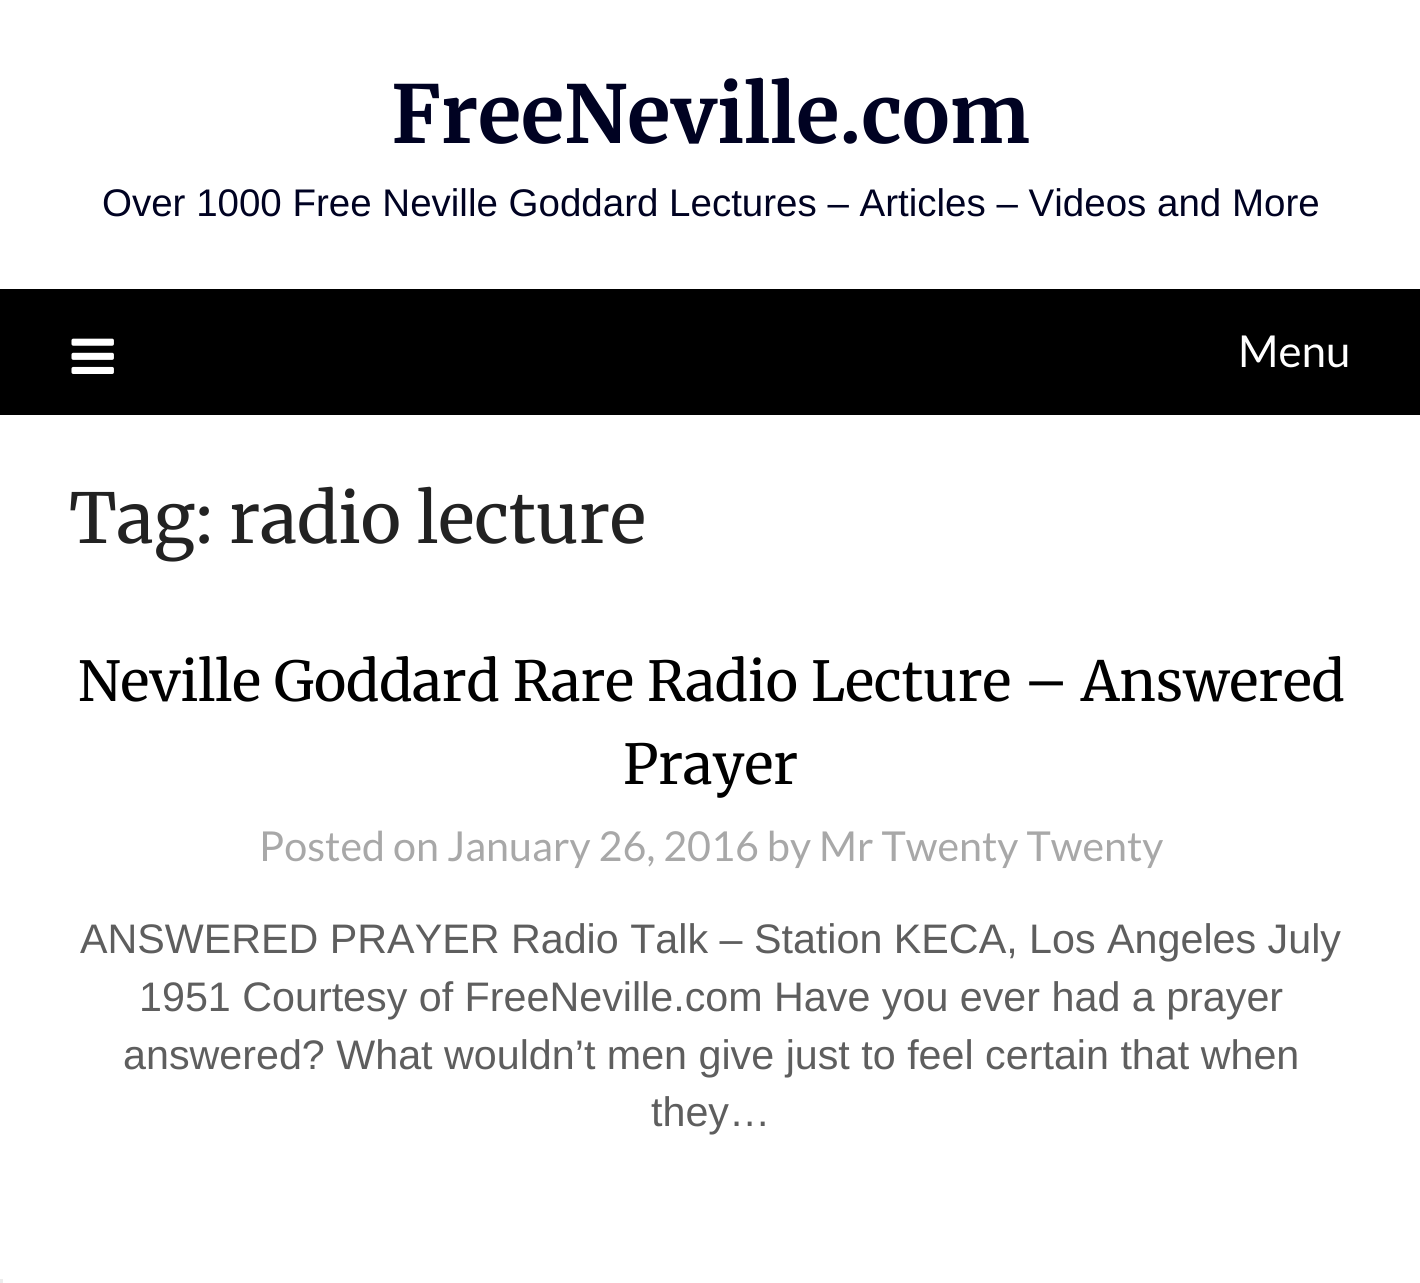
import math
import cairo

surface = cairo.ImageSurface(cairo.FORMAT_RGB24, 1420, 1283)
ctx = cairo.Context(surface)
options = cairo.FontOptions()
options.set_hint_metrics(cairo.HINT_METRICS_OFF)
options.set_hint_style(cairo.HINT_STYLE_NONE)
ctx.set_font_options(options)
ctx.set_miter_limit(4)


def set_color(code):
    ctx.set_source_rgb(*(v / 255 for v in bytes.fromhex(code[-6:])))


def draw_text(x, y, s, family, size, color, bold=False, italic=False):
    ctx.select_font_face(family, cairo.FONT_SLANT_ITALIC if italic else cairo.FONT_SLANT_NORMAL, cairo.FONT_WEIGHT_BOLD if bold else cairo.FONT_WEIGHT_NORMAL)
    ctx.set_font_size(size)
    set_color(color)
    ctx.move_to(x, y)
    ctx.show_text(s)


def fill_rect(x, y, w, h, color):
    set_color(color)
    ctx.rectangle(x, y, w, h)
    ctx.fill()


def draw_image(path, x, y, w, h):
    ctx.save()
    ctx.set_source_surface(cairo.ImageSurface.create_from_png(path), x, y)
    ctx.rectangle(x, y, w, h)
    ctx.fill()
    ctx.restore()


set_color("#ffffff")
ctx.paint()
draw_text(391, 143, "FreeNeville.com", "Merriweather", 79.75, "#000222", bold=True)
draw_text(102, 216, "Over 1000 Free Neville Goddard Lectures – Articles – Videos and More", "Liberation Sans", 38.5, "#000222")
fill_rect(0, 289, 1420, 126, "#000000")
draw_image("assets/img1.png", 71, 338, 43, 36)
draw_text(1238, 367, "Menu", "Lato", 44, "#ffffff")
draw_text(69, 543, "Tag: radio lecture", "Merriweather", 68.75, "#222222")
draw_text(78, 701, "Neville Goddard Rare Radio Lecture – Answered", "Merriweather", 55, "#000000")
draw_text(623, 784, "Prayer", "Merriweather", 55, "#000000")
draw_text(259, 861, "Posted on January 26, 2016 by Mr Twenty Twenty", "Lato", 41.25, "#a8a8a8")
draw_text(80, 953, "ANSWERED PRAYER Radio Talk – Station KECA, Los Angeles July", "Liberation Sans", 41.25, "#5e5e5e")
draw_text(139, 1011, "1951 Courtesy of FreeNeville.com Have you ever had a prayer", "Liberation Sans", 41.25, "#5e5e5e")
draw_text(123, 1069, "answered? What wouldn’t men give just to feel certain that when", "Liberation Sans", 41.25, "#5e5e5e")
draw_text(651, 1126, "they…", "Liberation Sans", 41.25, "#5e5e5e")
fill_rect(0, 1279, 3, 4, "#ececec")
surface.write_to_png("output.png")
